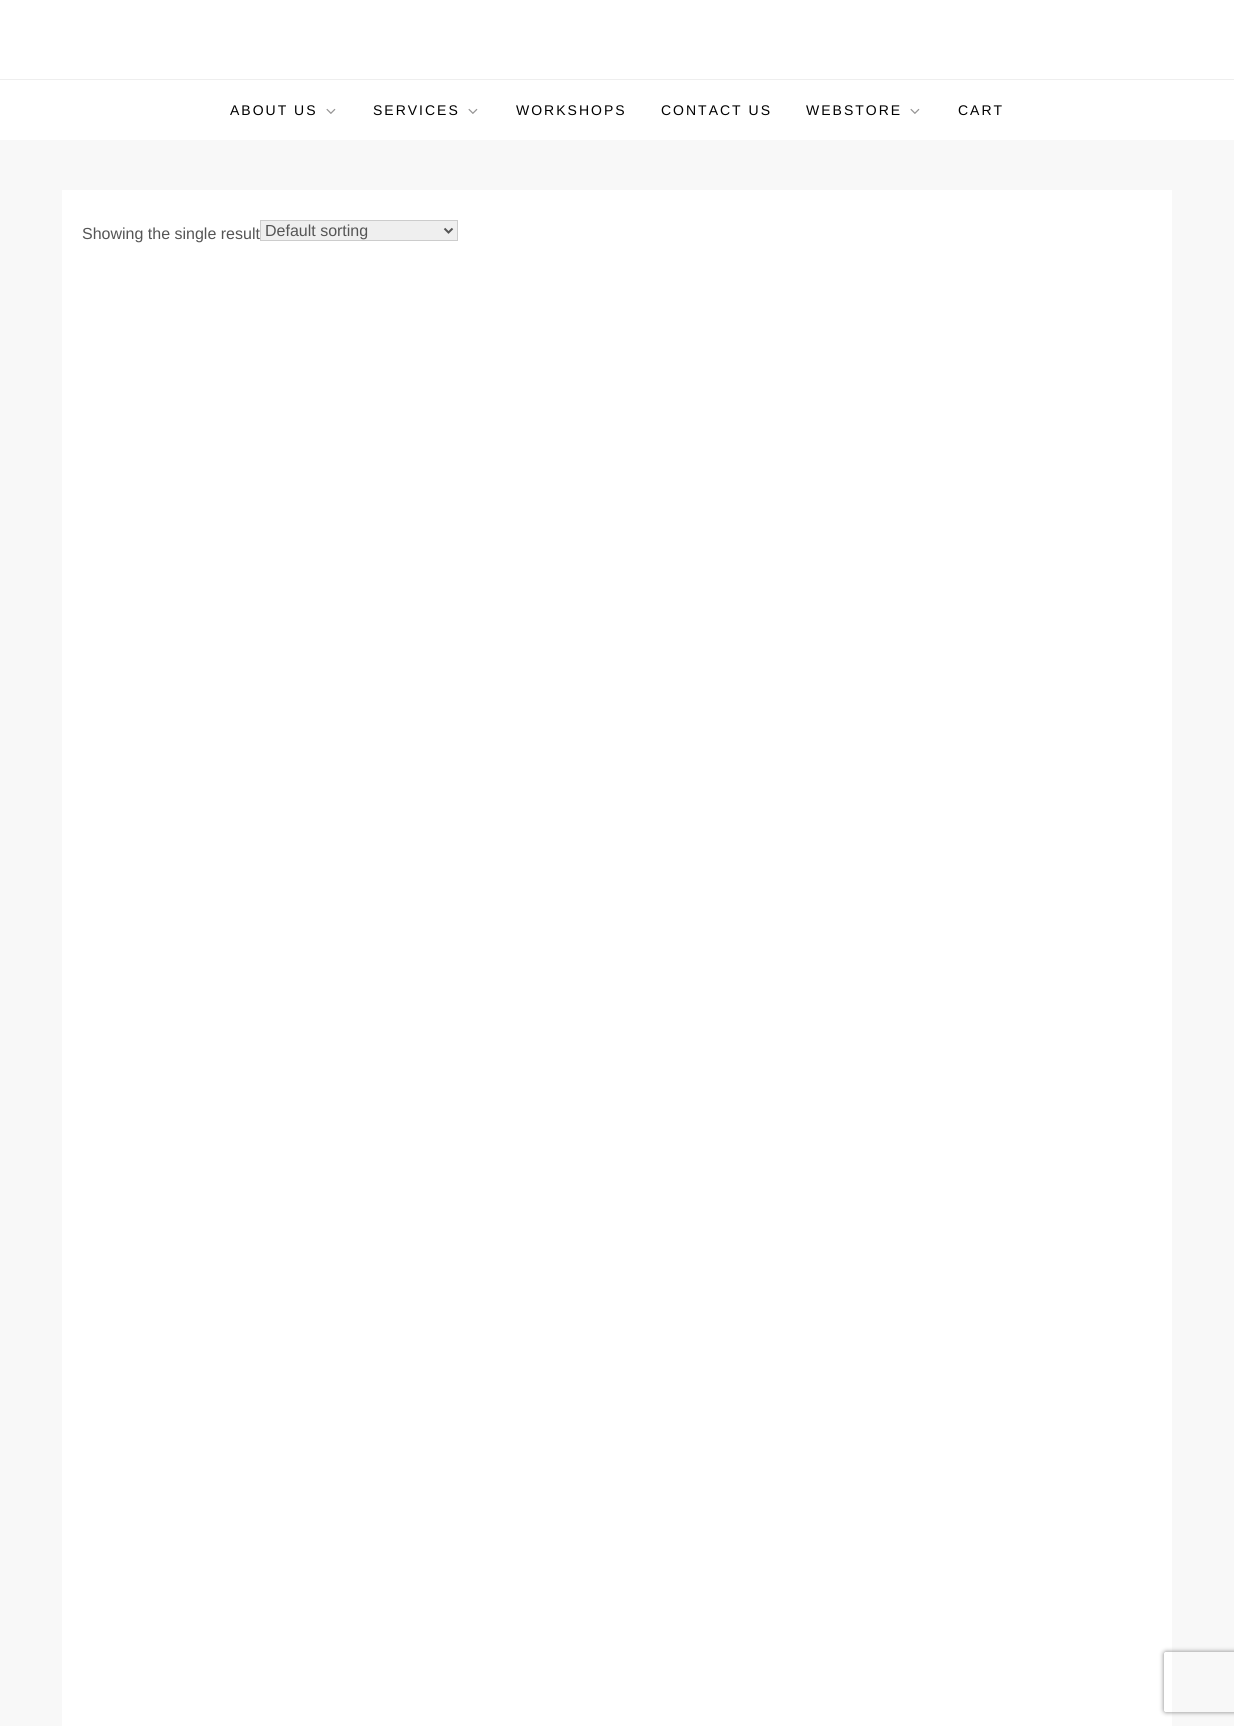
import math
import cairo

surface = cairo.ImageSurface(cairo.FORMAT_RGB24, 1234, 1726)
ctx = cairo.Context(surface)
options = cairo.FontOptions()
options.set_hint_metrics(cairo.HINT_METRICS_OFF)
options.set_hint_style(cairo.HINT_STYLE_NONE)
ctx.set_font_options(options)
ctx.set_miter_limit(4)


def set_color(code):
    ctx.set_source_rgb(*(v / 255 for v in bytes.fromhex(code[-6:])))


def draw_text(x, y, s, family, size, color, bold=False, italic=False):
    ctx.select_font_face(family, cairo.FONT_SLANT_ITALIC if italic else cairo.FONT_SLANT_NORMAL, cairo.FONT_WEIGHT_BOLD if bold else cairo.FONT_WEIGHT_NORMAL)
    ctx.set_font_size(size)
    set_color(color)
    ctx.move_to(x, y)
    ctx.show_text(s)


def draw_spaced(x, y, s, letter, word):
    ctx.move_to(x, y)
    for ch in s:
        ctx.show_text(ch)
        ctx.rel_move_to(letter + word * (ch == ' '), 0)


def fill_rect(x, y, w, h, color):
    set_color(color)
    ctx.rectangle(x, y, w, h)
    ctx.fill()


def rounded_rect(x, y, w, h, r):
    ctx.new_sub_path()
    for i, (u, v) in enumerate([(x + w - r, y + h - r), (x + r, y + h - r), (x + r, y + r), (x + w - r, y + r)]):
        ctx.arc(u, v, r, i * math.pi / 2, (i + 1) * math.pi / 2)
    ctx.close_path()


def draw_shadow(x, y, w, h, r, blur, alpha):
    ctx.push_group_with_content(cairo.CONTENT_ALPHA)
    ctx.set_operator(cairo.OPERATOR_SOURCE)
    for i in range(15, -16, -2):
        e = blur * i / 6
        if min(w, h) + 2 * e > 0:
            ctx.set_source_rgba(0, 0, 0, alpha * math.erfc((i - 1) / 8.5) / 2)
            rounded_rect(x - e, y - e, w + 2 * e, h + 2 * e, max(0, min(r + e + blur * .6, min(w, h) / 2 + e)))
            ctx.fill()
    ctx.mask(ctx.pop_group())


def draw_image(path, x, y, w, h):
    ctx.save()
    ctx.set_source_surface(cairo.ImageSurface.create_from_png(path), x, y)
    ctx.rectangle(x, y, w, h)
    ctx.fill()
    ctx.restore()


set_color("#f8f8f8")
ctx.paint()
fill_rect(0, 0, 1234, 140, "#ffffff")
fill_rect(0, 79, 1234, 1, "#eeeeee")
ctx.select_font_face("Liberation Sans")
ctx.set_font_size(14)
set_color("#000000")
draw_spaced(230, 115, "ABOUT US", 2, 0)
draw_image("assets/img1.png", 326, 108, 10, 6)
draw_spaced(373, 115, "SERVICES", 2, 0)
draw_image("assets/img1.png", 468, 108, 10, 6)
draw_spaced(516, 115, "WORKSHOPS", 2, 0)
draw_spaced(661, 115, "CONTACT US", 2, 0)
draw_spaced(806, 115, "WEBSTORE", 2, 0)
draw_image("assets/img1.png", 910, 108, 10, 6)
draw_spaced(958, 115, "CART", 2, 0)
fill_rect(62, 190, 1110, 1536, "#ffffff")
draw_text(82, 239, "Showing the single result", "Liberation Sans", 16, "#555555")
set_color("#efefef")
ctx.rectangle(260.5, 220.5, 197, 20)
ctx.fill_preserve()
set_color("#cccccc")
ctx.set_line_width(1)
ctx.stroke()
ctx.new_path()
ctx.move_to(444.5, 228.5)
ctx.line_to(448.5, 232.5)
ctx.line_to(452.5, 228.5)
set_color("#555555")
ctx.set_line_width(2)
ctx.stroke()
draw_text(265, 236, "Default sorting", "Liberation Sans", 16, "#555555")
ctx.save()
ctx.set_fill_rule(cairo.FILL_RULE_EVEN_ODD)
ctx.new_path()
ctx.move_to(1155, 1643)
ctx.line_to(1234, 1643)
ctx.line_to(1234, 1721)
ctx.line_to(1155, 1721)
ctx.close_path()
ctx.move_to(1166, 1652)
ctx.line_to(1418, 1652)
ctx.curve_to(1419, 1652, 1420, 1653, 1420, 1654)
ctx.line_to(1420, 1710)
ctx.curve_to(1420, 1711, 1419, 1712, 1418, 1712)
ctx.line_to(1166, 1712)
ctx.curve_to(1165, 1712, 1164, 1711, 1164, 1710)
ctx.line_to(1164, 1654)
ctx.curve_to(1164, 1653, 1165, 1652, 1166, 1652)
ctx.close_path()
ctx.clip()
set_color("#808080")
draw_shadow(1164, 1652, 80, 60, 2, 2.5, 1)
ctx.restore()
surface.write_to_png("output.png")
